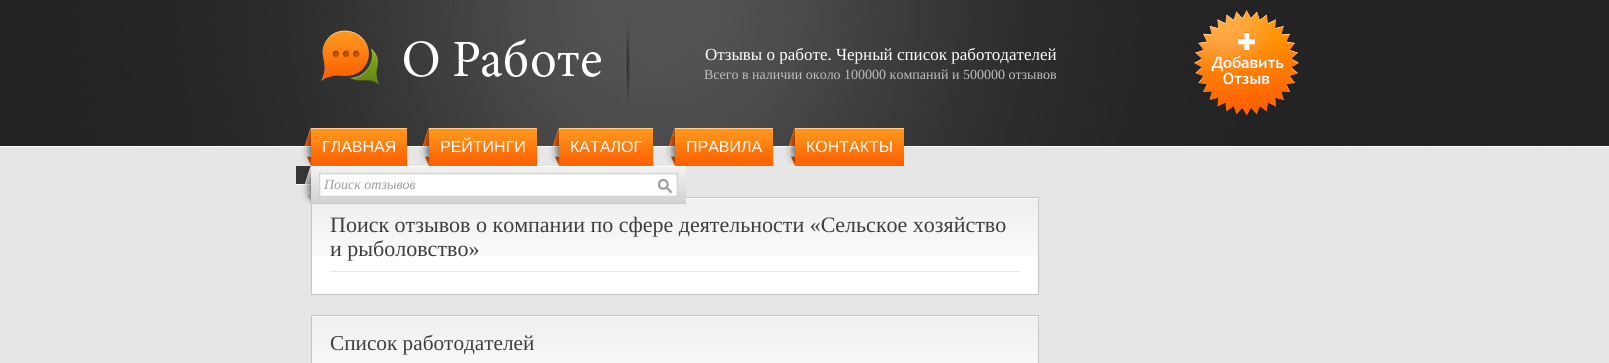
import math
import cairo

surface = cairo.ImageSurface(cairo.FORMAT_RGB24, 1609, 363)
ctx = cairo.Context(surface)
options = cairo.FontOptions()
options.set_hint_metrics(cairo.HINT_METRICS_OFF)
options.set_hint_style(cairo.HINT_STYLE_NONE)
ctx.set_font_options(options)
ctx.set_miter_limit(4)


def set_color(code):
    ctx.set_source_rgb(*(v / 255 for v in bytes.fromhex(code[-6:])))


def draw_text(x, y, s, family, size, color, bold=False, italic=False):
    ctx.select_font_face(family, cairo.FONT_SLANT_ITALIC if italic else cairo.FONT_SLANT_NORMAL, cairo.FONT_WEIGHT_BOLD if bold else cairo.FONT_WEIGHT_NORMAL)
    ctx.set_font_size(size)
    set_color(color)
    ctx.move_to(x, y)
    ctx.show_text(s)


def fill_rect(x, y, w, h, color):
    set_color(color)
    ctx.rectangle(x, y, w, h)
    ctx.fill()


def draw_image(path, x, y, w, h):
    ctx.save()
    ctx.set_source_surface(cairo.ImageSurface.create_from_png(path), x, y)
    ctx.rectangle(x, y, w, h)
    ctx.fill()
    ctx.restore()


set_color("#ffffff")
ctx.paint()
draw_image("assets/img1.png", 0, 0, 1609, 146)
draw_image("assets/img2.png", 321, 30, 280, 55)
draw_text(705, 60, "Отзывы о работе. Черный список работодателей", "Liberation Serif", 17, "#ffffff")
draw_text(704, 79, "Всего в наличии около 100000 компаний и 500000 отзывов", "Liberation Serif", 14, "#bdbdbd")
draw_image("assets/img3.png", 1194, 10, 105, 106)
fill_rect(0, 147, 1609, 216, "#e6e6e6")
draw_image("assets/img4.png", 301, 128, 10, 38)
draw_image("assets/img5.png", 311, 128, 96, 38)
draw_text(322, 152, "ГЛАВНАЯ", "Liberation Sans", 16, "#ffffff")
draw_image("assets/img6.png", 419, 128, 10, 38)
draw_image("assets/img7.png", 429, 128, 108, 38)
draw_text(440, 152, "РЕЙТИНГИ", "Liberation Sans", 16, "#ffffff")
draw_image("assets/img8.png", 549, 128, 10, 38)
draw_image("assets/img9.png", 559, 128, 94, 38)
draw_text(570, 152, "КАТАЛОГ", "Liberation Sans", 16, "#ffffff")
draw_image("assets/img10.png", 665, 128, 10, 38)
draw_image("assets/img11.png", 675, 128, 98, 38)
draw_text(686, 152, "ПРАВИЛА", "Liberation Sans", 16, "#ffffff")
draw_image("assets/img12.png", 785, 128, 10, 38)
draw_image("assets/img13.png", 795, 128, 109, 38)
draw_text(806, 152, "КОНТАКТЫ", "Liberation Sans", 16, "#ffffff")
fill_rect(312, 198, 726, 96, "#ffffff")
draw_image("assets/img16.png", 312, 199, 726, 57)
ctx.rectangle(311.5, 197.5, 727, 97)
set_color("#c5c5c5")
ctx.set_line_width(1)
ctx.stroke()
draw_image("assets/img14.png", 296, 166, 390, 38)
draw_text(324, 189, "Поиск отзывов", "Liberation Serif", 14, "#9a9a9a", italic=True)
draw_image("assets/img15.png", 658, 179, 15, 15)
fill_rect(330, 271, 690, 1, "#e6e6e6")
draw_text(330, 232, "Поиск отзывов о компании по сфере деятельности «Сельское хозяйство", "Liberation Serif", 22, "#3e3e3e")
draw_text(330, 256, "и рыболовство»", "Liberation Serif", 22, "#3e3e3e")
fill_rect(312, 316, 726, 1, "#ffffff")
draw_image("assets/img17.png", 312, 317, 726, 46)
ctx.rectangle(311.5, 315.5, 727, 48)
set_color("#c5c5c5")
ctx.stroke()
draw_text(330, 350, "Список работодателей", "Liberation Serif", 21.25, "#3e3e3e")
surface.write_to_png("output.png")
